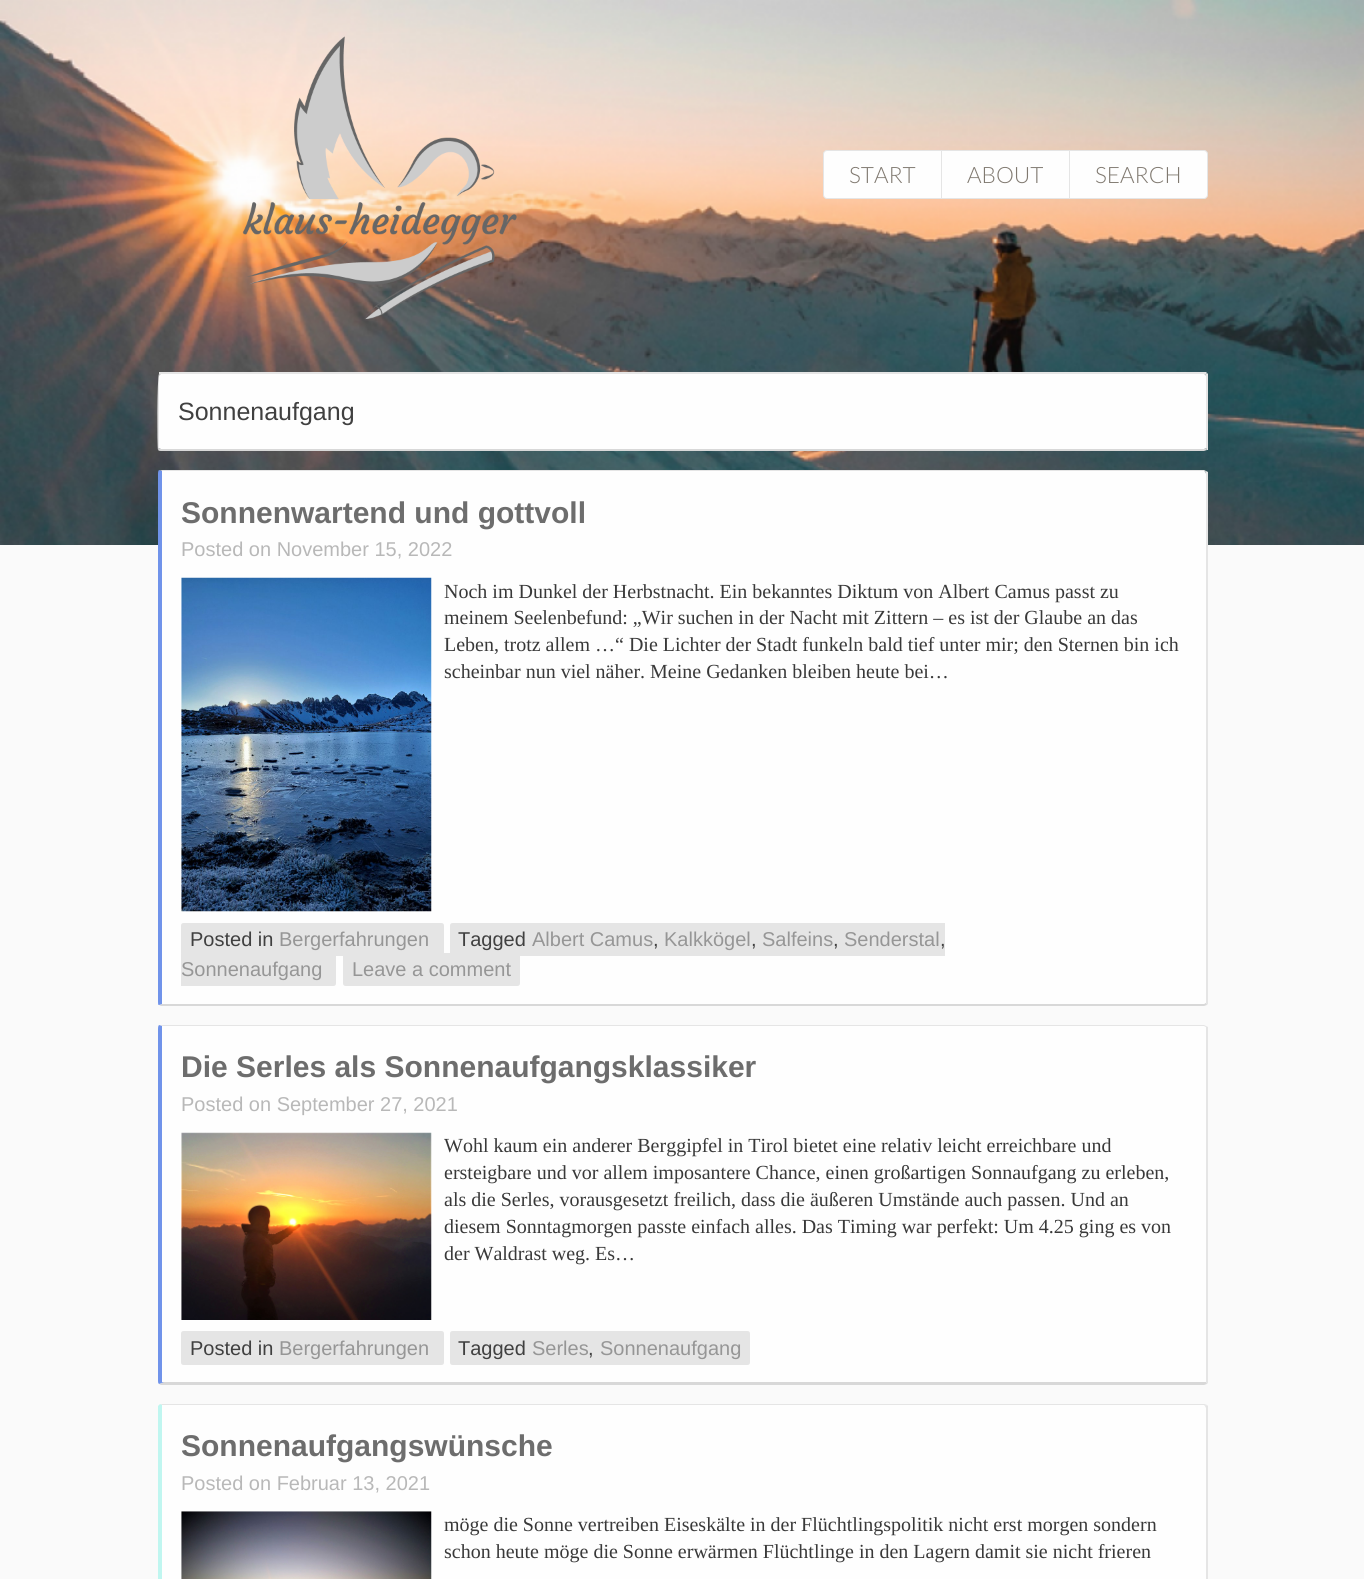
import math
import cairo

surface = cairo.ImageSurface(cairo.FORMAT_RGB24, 1364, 1579)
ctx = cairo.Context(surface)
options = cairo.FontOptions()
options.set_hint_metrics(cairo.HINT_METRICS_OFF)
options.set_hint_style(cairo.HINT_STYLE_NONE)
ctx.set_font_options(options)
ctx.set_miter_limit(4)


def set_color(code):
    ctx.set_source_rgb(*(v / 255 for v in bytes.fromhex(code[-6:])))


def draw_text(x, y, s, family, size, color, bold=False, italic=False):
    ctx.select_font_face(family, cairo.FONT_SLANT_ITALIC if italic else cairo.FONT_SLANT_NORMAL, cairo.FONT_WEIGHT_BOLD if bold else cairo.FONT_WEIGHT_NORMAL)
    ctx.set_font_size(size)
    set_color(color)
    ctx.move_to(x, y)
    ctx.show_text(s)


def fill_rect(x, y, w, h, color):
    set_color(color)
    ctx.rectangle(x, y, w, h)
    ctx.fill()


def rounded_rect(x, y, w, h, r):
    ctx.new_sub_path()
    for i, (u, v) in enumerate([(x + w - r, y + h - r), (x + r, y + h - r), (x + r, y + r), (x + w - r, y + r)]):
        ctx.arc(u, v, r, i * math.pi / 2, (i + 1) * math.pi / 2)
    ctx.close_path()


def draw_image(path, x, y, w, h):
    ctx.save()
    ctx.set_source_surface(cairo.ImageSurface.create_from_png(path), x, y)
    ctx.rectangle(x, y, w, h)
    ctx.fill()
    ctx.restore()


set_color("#fafafa")
ctx.paint()
draw_image("assets/img1.png", 0, 0, 1364, 545)
draw_image("assets/img2.png", 242, 36, 275, 284)
set_color("#fefefe")
rounded_rect(823.5, 150.5, 384, 48, 3.5)
ctx.fill_preserve()
set_color("#e5e5e5")
ctx.set_line_width(1)
ctx.stroke()
fill_rect(941, 151, 1, 47, "#e5e5e5")
draw_text(849, 183, "START", "Lato Light", 22.5, "#807970")
fill_rect(1069, 151, 1, 47, "#e5e5e5")
draw_text(967, 183, "ABOUT", "Lato Light", 22.5, "#807970")
draw_text(1095, 183, "SEARCH", "Lato Light", 22.5, "#807970")
set_color("#fefefe")
ctx.new_path()
ctx.move_to(161, 374)
ctx.line_to(1204, 374)
ctx.curve_to(1205, 374, 1206, 375, 1206, 376)
ctx.line_to(1206, 448)
ctx.curve_to(1206, 448, 1205, 449, 1204, 449)
ctx.line_to(161, 449)
ctx.curve_to(160, 449, 159, 448, 159, 448)
ctx.line_to(159, 376)
ctx.curve_to(159, 375, 160, 374, 161, 374)
ctx.close_path()
ctx.fill()
set_color("#e5e5e5")
ctx.new_path()
ctx.move_to(161, 374)
ctx.line_to(160, 375)
ctx.line_to(159, 374)
ctx.line_to(159, 372)
ctx.line_to(1206, 372)
ctx.line_to(1207, 373)
ctx.line_to(1205, 375)
ctx.line_to(1204, 374)
ctx.close_path()
ctx.fill()
ctx.new_path()
ctx.move_to(1208, 450)
ctx.line_to(1207, 450)
ctx.line_to(1206, 448)
ctx.line_to(1206, 376)
ctx.line_to(1205, 375)
ctx.line_to(1207, 373)
ctx.line_to(1208, 374)
ctx.close_path()
ctx.fill()
set_color("#d8d8d8")
ctx.new_path()
ctx.move_to(1207, 450)
ctx.line_to(1204, 451)
ctx.line_to(161, 451)
ctx.curve_to(160, 451, 159, 451, 158, 450)
ctx.line_to(159, 448)
ctx.line_to(161, 449)
ctx.line_to(1204, 449)
ctx.line_to(1206, 448)
ctx.close_path()
ctx.fill()
set_color("#e5e5e5")
ctx.new_path()
ctx.move_to(158, 450)
ctx.curve_to(157, 448, 157, 376, 159, 374)
ctx.line_to(160, 375)
ctx.line_to(159, 376)
ctx.line_to(159, 448)
ctx.close_path()
ctx.fill()
draw_text(178, 420, "Sonnenaufgang", "Liberation Sans", 25, "#404040")
set_color("#fefefe")
ctx.new_path()
ctx.move_to(162, 471)
ctx.line_to(1204, 471)
ctx.curve_to(1205, 471, 1206, 472, 1206, 474)
ctx.line_to(1206, 1002)
ctx.curve_to(1206, 1003, 1205, 1004, 1204, 1004)
ctx.line_to(162, 1004)
ctx.close_path()
ctx.fill()
set_color("#e5e5e5")
ctx.new_path()
ctx.move_to(161, 470)
ctx.line_to(159, 470)
ctx.line_to(162, 471)
ctx.line_to(1204, 471)
ctx.line_to(1206, 472)
ctx.line_to(1206, 471)
ctx.line_to(1204, 470)
ctx.close_path()
ctx.fill()
ctx.new_path()
ctx.move_to(1208, 1004)
ctx.line_to(1207, 1005)
ctx.line_to(1206, 1003)
ctx.line_to(1206, 650)
ctx.line_to(1206, 472)
ctx.line_to(1206, 471)
ctx.line_to(1208, 472)
ctx.close_path()
ctx.fill()
set_color("#d8d8d8")
ctx.new_path()
ctx.move_to(1207, 1005)
ctx.line_to(1204, 1006)
ctx.line_to(161, 1006)
ctx.line_to(159, 1005)
ctx.line_to(162, 1004)
ctx.line_to(1204, 1004)
ctx.curve_to(1205, 1004, 1205, 1003, 1206, 1003)
ctx.close_path()
ctx.fill()
set_color("#7093ea")
ctx.new_path()
ctx.move_to(159, 470)
ctx.curve_to(158, 471, 158, 473, 158, 474)
ctx.line_to(158, 1002)
ctx.curve_to(158, 1004, 158, 1005, 159, 1005)
ctx.line_to(162, 1004)
ctx.line_to(162, 471)
ctx.close_path()
ctx.fill()
draw_text(181, 523, "Sonnenwartend und gottvoll", "Liberation Sans", 30, "#6d6d6d", bold=True)
draw_text(181, 556, "Posted on November 15, 2022", "Liberation Sans", 20, "#b8b8b8")
draw_image("assets/img3.png", 181, 577, 251, 335)
draw_text(444, 598, "Noch im Dunkel der Herbstnacht. Ein bekanntes Diktum von Albert Camus passt zu", "Liberation Serif", 20, "#393939")
draw_text(444, 624, "meinem Seelenbefund: „Wir suchen in der Nacht mit Zittern – es ist der Glaube an das", "Liberation Serif", 20, "#393939")
draw_text(444, 651, "Leben, trotz allem …“ Die Lichter der Stadt funkeln bald tief unter mir; den Sternen bin ich", "Liberation Serif", 20, "#393939")
draw_text(444, 678, "scheinbar nun viel näher. Meine Gedanken bleiben heute bei…", "Liberation Serif", 20, "#393939")
set_color("#e5e5e5")
ctx.new_path()
ctx.move_to(183.5, 923)
ctx.line_to(279, 923)
ctx.line_to(279, 956)
ctx.line_to(183.5, 956)
ctx.curve_to(182, 956, 181, 955, 181, 953.5)
ctx.line_to(181, 925.5)
ctx.curve_to(181, 924, 182, 923, 183.5, 923)
ctx.close_path()
ctx.fill()
draw_text(190, 946, "Posted in", "Liberation Sans", 20, "#404040")
fill_rect(279, 923, 150, 33, "#e5e5e5")
draw_text(279, 946, "Bergerfahrungen", "Liberation Sans", 20, "#969696")
set_color("#e5e5e5")
ctx.new_path()
ctx.move_to(429, 923)
ctx.line_to(441.5, 923)
ctx.curve_to(443, 923, 444, 924, 444, 925.5)
ctx.line_to(444, 953.5)
ctx.curve_to(444, 955, 443, 956, 441.5, 956)
ctx.line_to(429, 956)
ctx.close_path()
ctx.fill()
ctx.new_path()
ctx.move_to(452.5, 923)
ctx.line_to(531, 923)
ctx.line_to(531, 956)
ctx.line_to(452.5, 956)
ctx.curve_to(451, 956, 450, 955, 450, 953.5)
ctx.line_to(450, 925.5)
ctx.curve_to(450, 924, 451, 923, 452.5, 923)
ctx.close_path()
ctx.fill()
draw_text(458, 946, "Tagged", "Liberation Sans", 20, "#404040")
fill_rect(531, 923, 414, 33, "#e5e5e5")
draw_text(532, 946, "Albert Camus", "Liberation Sans", 20, "#969696")
draw_text(653, 946, ",", "Liberation Sans", 20, "#404040")
draw_text(664, 946, "Kalkkögel", "Liberation Sans", 20, "#969696")
draw_text(751, 946, ",", "Liberation Sans", 20, "#404040")
draw_text(762, 946, "Salfeins", "Liberation Sans", 20, "#969696")
draw_text(833, 946, ",", "Liberation Sans", 20, "#404040")
draw_text(844, 946, "Senderstal", "Liberation Sans", 20, "#969696")
draw_text(940, 946, ",", "Liberation Sans", 20, "#404040")
fill_rect(181, 954, 142, 32, "#e5e5e5")
draw_text(181, 976, "Sonnenaufgang", "Liberation Sans", 20, "#969696")
set_color("#e5e5e5")
ctx.new_path()
ctx.move_to(323, 953)
ctx.line_to(333.5, 953)
ctx.curve_to(335, 953, 336, 954, 336, 955.5)
ctx.line_to(336, 983.5)
ctx.curve_to(336, 985, 335, 986, 333.5, 986)
ctx.line_to(323, 986)
ctx.close_path()
ctx.fill()
rounded_rect(343, 953, 177, 33, 2.5)
ctx.fill()
draw_text(352, 976, "Leave a comment", "Liberation Sans", 20, "#969696")
set_color("#fefefe")
ctx.new_path()
ctx.move_to(162, 1026)
ctx.line_to(1204, 1026)
ctx.curve_to(1205, 1026, 1206, 1027, 1206, 1029)
ctx.line_to(1206, 1381)
ctx.curve_to(1206, 1382, 1205, 1382, 1204, 1382)
ctx.line_to(162, 1382)
ctx.close_path()
ctx.fill()
set_color("#e5e5e5")
ctx.new_path()
ctx.move_to(161, 1025)
ctx.line_to(159, 1025)
ctx.line_to(162, 1026)
ctx.line_to(1204, 1026)
ctx.line_to(1206, 1027)
ctx.line_to(1206, 1026)
ctx.line_to(1204, 1025)
ctx.close_path()
ctx.fill()
ctx.new_path()
ctx.move_to(1208, 1383)
ctx.line_to(1207, 1384)
ctx.line_to(1206, 1382)
ctx.line_to(1206, 1029)
ctx.line_to(1206, 1027)
ctx.line_to(1206, 1026)
ctx.line_to(1208, 1027)
ctx.close_path()
ctx.fill()
set_color("#d8d8d8")
ctx.new_path()
ctx.move_to(161, 1385)
ctx.line_to(1204, 1385)
ctx.line_to(1207, 1384)
ctx.line_to(1206, 1382)
ctx.line_to(1204, 1382)
ctx.line_to(164, 1382)
ctx.line_to(159, 1384)
ctx.close_path()
ctx.fill()
set_color("#7093ea")
ctx.new_path()
ctx.move_to(159, 1025)
ctx.curve_to(158, 1026, 158, 1028, 158, 1029)
ctx.line_to(158, 1381)
ctx.curve_to(158, 1382, 158, 1383, 159, 1384)
ctx.line_to(164, 1382)
ctx.line_to(162, 1382)
ctx.line_to(162, 1026)
ctx.close_path()
ctx.fill()
draw_text(181, 1077, "Die Serles als Sonnenaufgangsklassiker", "Liberation Sans", 30, "#6d6d6d", bold=True)
draw_text(181, 1111, "Posted on September 27, 2021", "Liberation Sans", 20, "#b8b8b8")
draw_image("assets/img4.png", 181, 1132, 251, 188)
draw_text(444, 1152, "Wohl kaum ein anderer Berggipfel in Tirol bietet eine relativ leicht erreichbare und", "Liberation Serif", 20, "#393939")
draw_text(444, 1179, "ersteigbare und vor allem imposantere Chance, einen großartigen Sonnaufgang zu erleben,", "Liberation Serif", 20, "#393939")
draw_text(444, 1206, "als die Serles, vorausgesetzt freilich, dass die äußeren Umstände auch passen. Und an", "Liberation Serif", 20, "#393939")
draw_text(444, 1233, "diesem Sonntagmorgen passte einfach alles. Das Timing war perfekt: Um 4.25 ging es von", "Liberation Serif", 20, "#393939")
draw_text(444, 1260, "der Waldrast weg. Es…", "Liberation Serif", 20, "#393939")
set_color("#e5e5e5")
ctx.new_path()
ctx.move_to(183.5, 1331)
ctx.line_to(279, 1331)
ctx.line_to(279, 1365)
ctx.line_to(183.5, 1365)
ctx.curve_to(182, 1365, 181, 1364, 181, 1362.5)
ctx.line_to(181, 1333.5)
ctx.curve_to(181, 1332, 182, 1331, 183.5, 1331)
ctx.close_path()
ctx.fill()
draw_text(190, 1355, "Posted in", "Liberation Sans", 20, "#404040")
fill_rect(279, 1331, 150, 34, "#e5e5e5")
draw_text(279, 1355, "Bergerfahrungen", "Liberation Sans", 20, "#969696")
set_color("#e5e5e5")
ctx.new_path()
ctx.move_to(429, 1331)
ctx.line_to(441.5, 1331)
ctx.curve_to(443, 1331, 444, 1332, 444, 1333.5)
ctx.line_to(444, 1362.5)
ctx.curve_to(444, 1364, 443, 1365, 441.5, 1365)
ctx.line_to(429, 1365)
ctx.close_path()
ctx.fill()
ctx.new_path()
ctx.move_to(452.5, 1331)
ctx.line_to(531, 1331)
ctx.line_to(531, 1365)
ctx.line_to(452.5, 1365)
ctx.curve_to(451, 1365, 450, 1364, 450, 1362.5)
ctx.line_to(450, 1333.5)
ctx.curve_to(450, 1332, 451, 1331, 452.5, 1331)
ctx.close_path()
ctx.fill()
draw_text(458, 1355, "Tagged", "Liberation Sans", 20, "#404040")
fill_rect(531, 1331, 69, 34, "#e5e5e5")
draw_text(532, 1355, "Serles", "Liberation Sans", 20, "#969696")
draw_text(588, 1355, ",", "Liberation Sans", 20, "#404040")
set_color("#e5e5e5")
ctx.new_path()
ctx.move_to(600, 1331)
ctx.line_to(747.5, 1331)
ctx.curve_to(749, 1331, 750, 1332, 750, 1333.5)
ctx.line_to(750, 1362.5)
ctx.curve_to(750, 1364, 749, 1365, 747.5, 1365)
ctx.line_to(600, 1365)
ctx.close_path()
ctx.fill()
draw_text(600, 1355, "Sonnenaufgang", "Liberation Sans", 20, "#969696")
set_color("#fefefe")
ctx.new_path()
ctx.move_to(162, 1405)
ctx.line_to(1204, 1405)
ctx.curve_to(1205, 1405, 1206, 1406, 1206, 1408)
ctx.line_to(1206, 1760)
ctx.curve_to(1206, 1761, 1205, 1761, 1204, 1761)
ctx.line_to(162, 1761)
ctx.close_path()
ctx.fill()
set_color("#e5e5e5")
ctx.new_path()
ctx.move_to(161, 1404)
ctx.line_to(160, 1404)
ctx.line_to(162, 1405)
ctx.line_to(1204, 1405)
ctx.line_to(1205, 1406)
ctx.line_to(1207, 1405)
ctx.line_to(1204, 1404)
ctx.close_path()
ctx.fill()
ctx.new_path()
ctx.move_to(1207, 1405)
ctx.line_to(1208, 1406)
ctx.line_to(1208, 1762)
ctx.line_to(1207, 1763)
ctx.line_to(1206, 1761)
ctx.line_to(1206, 1408)
ctx.line_to(1205, 1406)
ctx.close_path()
ctx.fill()
set_color("#c0f6f0")
ctx.new_path()
ctx.move_to(162, 1405)
ctx.line_to(160, 1404)
ctx.line_to(158, 1406)
ctx.line_to(158, 1525)
ctx.line_to(158, 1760)
ctx.line_to(159, 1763)
ctx.line_to(163, 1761)
ctx.line_to(162, 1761)
ctx.close_path()
ctx.fill()
draw_text(181, 1456, "Sonnenaufgangswünsche", "Liberation Sans", 30, "#6d6d6d", bold=True)
draw_text(181, 1490, "Posted on Februar 13, 2021", "Liberation Sans", 20, "#b8b8b8")
draw_image("assets/img5.png", 181, 1511, 251, 68)
draw_text(444, 1531, "möge die Sonne vertreiben Eiseskälte in der Flüchtlingspolitik nicht erst morgen sondern", "Liberation Serif", 20, "#393939")
draw_text(444, 1558, "schon heute möge die Sonne erwärmen Flüchtlinge in den Lagern damit sie nicht frieren", "Liberation Serif", 20, "#393939")
surface.write_to_png("output.png")
